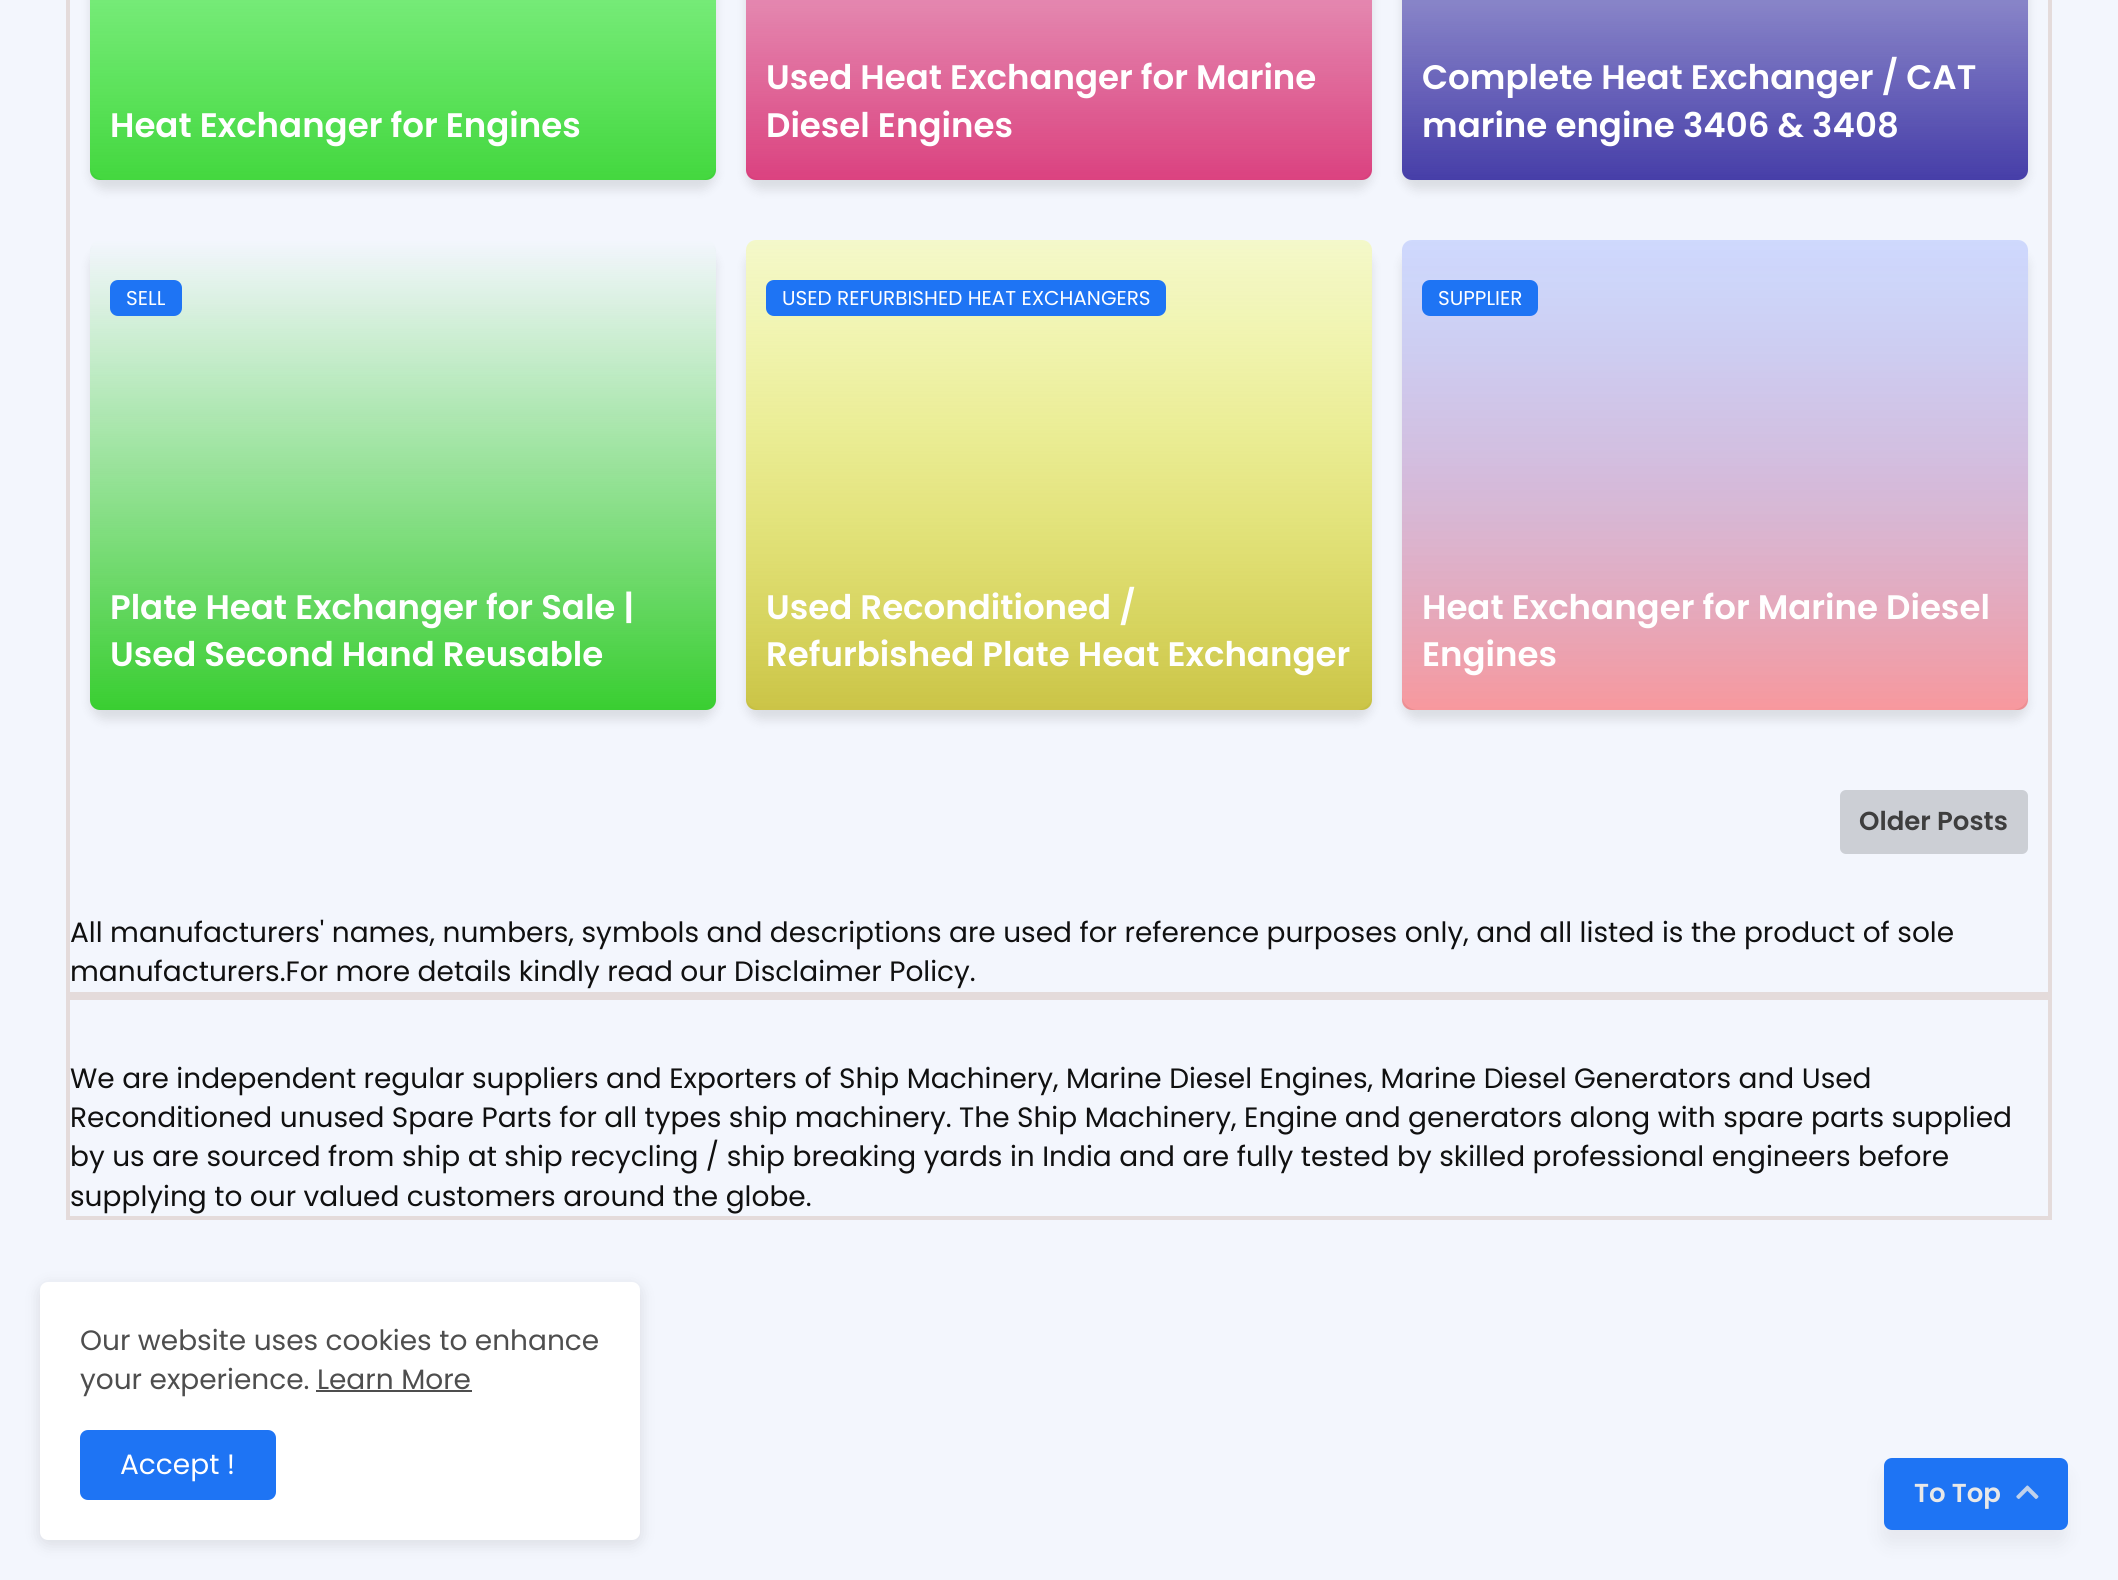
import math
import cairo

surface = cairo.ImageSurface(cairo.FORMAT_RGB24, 2118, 1580)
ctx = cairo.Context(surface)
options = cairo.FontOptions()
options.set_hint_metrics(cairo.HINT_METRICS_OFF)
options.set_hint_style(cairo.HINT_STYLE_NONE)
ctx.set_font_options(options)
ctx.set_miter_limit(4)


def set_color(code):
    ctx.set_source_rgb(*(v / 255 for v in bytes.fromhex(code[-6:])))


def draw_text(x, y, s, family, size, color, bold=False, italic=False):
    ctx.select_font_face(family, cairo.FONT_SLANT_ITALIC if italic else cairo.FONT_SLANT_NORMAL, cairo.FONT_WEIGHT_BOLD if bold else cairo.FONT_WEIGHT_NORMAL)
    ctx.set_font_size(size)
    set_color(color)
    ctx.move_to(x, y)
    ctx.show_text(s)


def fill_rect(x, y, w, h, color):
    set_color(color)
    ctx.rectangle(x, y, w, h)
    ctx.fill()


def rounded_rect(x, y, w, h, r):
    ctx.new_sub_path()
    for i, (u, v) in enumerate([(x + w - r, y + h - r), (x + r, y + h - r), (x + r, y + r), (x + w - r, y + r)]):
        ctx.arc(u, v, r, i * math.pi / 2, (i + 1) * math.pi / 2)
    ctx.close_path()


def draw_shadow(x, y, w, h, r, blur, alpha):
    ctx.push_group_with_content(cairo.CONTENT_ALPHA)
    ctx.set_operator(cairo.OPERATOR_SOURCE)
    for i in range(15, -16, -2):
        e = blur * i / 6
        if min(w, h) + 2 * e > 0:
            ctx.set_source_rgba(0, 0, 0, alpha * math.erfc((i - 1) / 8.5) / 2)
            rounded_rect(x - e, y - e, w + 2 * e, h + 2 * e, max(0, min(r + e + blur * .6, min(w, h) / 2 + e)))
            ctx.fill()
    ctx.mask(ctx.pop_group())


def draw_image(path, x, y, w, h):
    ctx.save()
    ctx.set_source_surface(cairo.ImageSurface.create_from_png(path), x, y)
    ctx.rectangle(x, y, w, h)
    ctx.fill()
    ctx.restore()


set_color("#f3f6fd")
ctx.paint()
ctx.rectangle(68, -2, 1982, 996)
set_color("#e4dbdb")
ctx.set_line_width(4)
ctx.stroke()
ctx.save()
ctx.set_fill_rule(cairo.FILL_RULE_EVEN_ODD)
ctx.new_path()
ctx.move_to(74, 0)
ctx.line_to(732, 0)
ctx.line_to(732, 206)
ctx.line_to(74, 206)
ctx.close_path()
ctx.move_to(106, -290)
ctx.line_to(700, -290)
ctx.curve_to(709, -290, 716, -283, 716, -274)
ctx.line_to(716, 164)
ctx.curve_to(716, 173, 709, 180, 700, 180)
ctx.line_to(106, 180)
ctx.curve_to(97, 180, 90, 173, 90, 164)
ctx.line_to(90, -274)
ctx.curve_to(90, -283, 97, -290, 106, -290)
ctx.close_path()
ctx.clip()
set_color("#000000")
draw_shadow(90, -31, 626, 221, 16, 5, 0.1)
ctx.restore()
gradient = cairo.LinearGradient(403, -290, 403, 180)
gradient.add_color_stop_rgba(0, 0, 1, 0.008, 0.17)
gradient.add_color_stop_rgba(1, 0.035, 0.804, 0, 0.75)
ctx.set_source(gradient)
rounded_rect(90, -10, 626, 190, 10)
ctx.fill()
draw_text(110, 137, "Heat Exchanger for Engines", "Poppins SemiBold", 34, "#ffffff")
ctx.save()
ctx.set_fill_rule(cairo.FILL_RULE_EVEN_ODD)
ctx.new_path()
ctx.move_to(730, 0)
ctx.line_to(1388, 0)
ctx.line_to(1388, 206)
ctx.line_to(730, 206)
ctx.close_path()
ctx.move_to(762, -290)
ctx.line_to(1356, -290)
ctx.curve_to(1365, -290, 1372, -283, 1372, -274)
ctx.line_to(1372, 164)
ctx.curve_to(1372, 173, 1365, 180, 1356, 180)
ctx.line_to(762, 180)
ctx.curve_to(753, 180, 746, 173, 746, 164)
ctx.line_to(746, -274)
ctx.curve_to(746, -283, 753, -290, 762, -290)
ctx.close_path()
ctx.clip()
set_color("#000000")
draw_shadow(746, -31, 626, 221, 16, 5, 0.1)
ctx.restore()
gradient = cairo.LinearGradient(1059, 180, 1059, -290)
gradient.add_color_stop_rgba(0, 0.835, 0.082, 0.376, 0.8)
gradient.add_color_stop_rgba(1, 0.835, 0.082, 0.376, 0)
ctx.set_source(gradient)
rounded_rect(746, -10, 626, 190, 10)
ctx.fill()
draw_text(766, 89, "Used Heat Exchanger for Marine", "Poppins SemiBold", 34, "#ffffff")
draw_text(766, 137, "Diesel Engines", "Poppins SemiBold", 34, "#ffffff")
ctx.save()
ctx.set_fill_rule(cairo.FILL_RULE_EVEN_ODD)
ctx.new_path()
ctx.move_to(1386, 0)
ctx.line_to(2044, 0)
ctx.line_to(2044, 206)
ctx.line_to(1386, 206)
ctx.close_path()
ctx.move_to(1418, -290)
ctx.line_to(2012, -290)
ctx.curve_to(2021, -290, 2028, -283, 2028, -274)
ctx.line_to(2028, 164)
ctx.curve_to(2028, 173, 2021, 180, 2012, 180)
ctx.line_to(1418, 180)
ctx.curve_to(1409, 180, 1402, 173, 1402, 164)
ctx.line_to(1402, -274)
ctx.curve_to(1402, -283, 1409, -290, 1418, -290)
ctx.close_path()
ctx.clip()
set_color("#000000")
draw_shadow(1402, -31, 626, 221, 16, 5, 0.1)
ctx.restore()
gradient = cairo.LinearGradient(1715, 180, 1715, -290)
gradient.add_color_stop_rgba(0, 0.275, 0.243, 0.659, 1)
gradient.add_color_stop_rgba(1, 0.275, 0.243, 0.659, 0)
ctx.set_source(gradient)
rounded_rect(1402, -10, 626, 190, 10)
ctx.fill()
draw_text(1422, 89, "Complete Heat Exchanger / CAT", "Poppins SemiBold", 34, "#ffffff")
draw_text(1422, 137, "marine engine 3406 & 3408", "Poppins SemiBold", 34, "#ffffff")
ctx.save()
ctx.set_fill_rule(cairo.FILL_RULE_EVEN_ODD)
ctx.new_path()
ctx.move_to(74, 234)
ctx.line_to(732, 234)
ctx.line_to(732, 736)
ctx.line_to(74, 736)
ctx.close_path()
ctx.move_to(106, 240)
ctx.line_to(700, 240)
ctx.curve_to(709, 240, 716, 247, 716, 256)
ctx.line_to(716, 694)
ctx.curve_to(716, 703, 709, 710, 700, 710)
ctx.line_to(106, 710)
ctx.curve_to(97, 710, 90, 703, 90, 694)
ctx.line_to(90, 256)
ctx.curve_to(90, 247, 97, 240, 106, 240)
ctx.close_path()
ctx.clip()
set_color("#000000")
draw_shadow(90, 250, 626, 470, 16, 5, 0.1)
ctx.restore()
gradient = cairo.LinearGradient(403, 710, 403, 240)
gradient.add_color_stop_rgba(0, 0.224, 0.808, 0.192, 1)
gradient.add_color_stop_rgba(1, 0.224, 0.808, 0.192, 0)
ctx.set_source(gradient)
rounded_rect(90, 240, 626, 470, 10)
ctx.fill()
set_color("#1e74f4")
rounded_rect(110, 280, 72, 36, 8)
ctx.fill()
draw_text(126, 305, "SELL", "Poppins", 20, "#ffffff")
draw_text(110, 619, "Plate Heat Exchanger for Sale |", "Poppins SemiBold", 34, "#ffffff")
draw_text(110, 666, "Used Second Hand Reusable", "Poppins SemiBold", 34, "#ffffff")
ctx.save()
ctx.set_fill_rule(cairo.FILL_RULE_EVEN_ODD)
ctx.new_path()
ctx.move_to(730, 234)
ctx.line_to(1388, 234)
ctx.line_to(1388, 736)
ctx.line_to(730, 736)
ctx.close_path()
ctx.move_to(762, 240)
ctx.line_to(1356, 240)
ctx.curve_to(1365, 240, 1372, 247, 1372, 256)
ctx.line_to(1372, 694)
ctx.curve_to(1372, 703, 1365, 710, 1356, 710)
ctx.line_to(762, 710)
ctx.curve_to(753, 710, 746, 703, 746, 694)
ctx.line_to(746, 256)
ctx.curve_to(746, 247, 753, 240, 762, 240)
ctx.close_path()
ctx.clip()
set_color("#000000")
draw_shadow(746, 250, 626, 470, 16, 5, 0.1)
ctx.restore()
gradient = cairo.LinearGradient(1059, 240, 1059, 710)
gradient.add_color_stop_rgba(0, 0.965, 1, 0, 0.2)
gradient.add_color_stop_rgba(1, 0.733, 0.694, 0, 0.72)
ctx.set_source(gradient)
rounded_rect(746, 240, 626, 470, 10)
ctx.fill()
set_color("#1e74f4")
rounded_rect(766, 280, 400, 36, 8)
ctx.fill()
draw_text(782, 305, "USED REFURBISHED HEAT EXCHANGERS", "Poppins", 20, "#ffffff")
draw_text(766, 619, "Used Reconditioned /", "Poppins SemiBold", 34, "#ffffff")
draw_text(766, 666, "Refurbished Plate Heat Exchanger", "Poppins SemiBold", 34, "#ffffff")
ctx.save()
ctx.set_fill_rule(cairo.FILL_RULE_EVEN_ODD)
ctx.new_path()
ctx.move_to(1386, 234)
ctx.line_to(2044, 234)
ctx.line_to(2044, 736)
ctx.line_to(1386, 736)
ctx.close_path()
ctx.move_to(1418, 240)
ctx.line_to(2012, 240)
ctx.curve_to(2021, 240, 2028, 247, 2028, 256)
ctx.line_to(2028, 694)
ctx.curve_to(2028, 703, 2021, 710, 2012, 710)
ctx.line_to(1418, 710)
ctx.curve_to(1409, 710, 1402, 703, 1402, 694)
ctx.line_to(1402, 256)
ctx.curve_to(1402, 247, 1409, 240, 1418, 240)
ctx.close_path()
ctx.clip()
set_color("#000000")
draw_shadow(1402, 250, 626, 470, 16, 5, 0.1)
ctx.restore()
gradient = cairo.LinearGradient(1715, 240, 1715, 710)
gradient.add_color_stop_rgba(0, 0, 0.216, 1, 0.15)
gradient.add_color_stop_rgba(1, 1, 0, 0, 0.38)
ctx.set_source(gradient)
rounded_rect(1402, 240, 626, 470, 10)
ctx.fill()
set_color("#1e74f4")
rounded_rect(1422, 280, 116, 36, 8)
ctx.fill()
draw_text(1438, 305, "SUPPLIER", "Poppins", 20, "#ffffff")
draw_text(1422, 619, "Heat Exchanger for Marine Diesel", "Poppins SemiBold", 34, "#ffffff")
draw_text(1422, 666, "Engines", "Poppins SemiBold", 34, "#ffffff")
set_color("#cccfd5")
rounded_rect(1840, 790, 188, 64, 6)
ctx.fill()
draw_text(1859, 830, "Older Posts", "Poppins SemiBold", 26, "#3e3e3e")
draw_text(70, 942, "All manufacturers' names, numbers, symbols and descriptions are used for reference purposes only, and all listed is the product of sole", "Poppins", 28, "#101010")
draw_text(70, 981, "manufacturers.For more details kindly read our Disclaimer Policy.", "Poppins", 28, "#101010")
ctx.rectangle(68, 998, 1982, 220)
set_color("#e4dbdb")
ctx.stroke()
draw_text(70, 1088, "We are independent regular suppliers and Exporters of Ship Machinery, Marine Diesel Engines, Marine Diesel Generators and Used", "Poppins", 28, "#101010")
draw_text(70, 1127, "Reconditioned unused Spare Parts for all types ship machinery. The Ship Machinery, Engine and generators along with spare parts supplied", "Poppins", 28, "#101010")
draw_text(70, 1166, "by us are sourced from ship at ship recycling / ship breaking yards in India and are fully tested by skilled professional engineers before", "Poppins", 28, "#101010")
draw_text(70, 1206, "supplying to our valued customers around the globe.", "Poppins", 28, "#101010")
set_color("#000000")
draw_shadow(40, 1286, 600, 258, 8, 8, 0.11)
set_color("#ffffff")
rounded_rect(40, 1282, 600, 258, 8)
ctx.fill()
draw_text(80, 1350, "Our website uses cookies to enhance", "Poppins", 28, "#4e4e4e")
draw_text(80, 1389, "your experience. Learn More", "Poppins", 28, "#4e4e4e")
fill_rect(316, 1390, 156, 2, "#4e4e4e")
set_color("#1e74f4")
rounded_rect(80, 1430, 196, 70, 8)
ctx.fill()
draw_text(120, 1474, "Accept !", "Poppins", 28, "#ffffff")
set_color("#000000")
draw_shadow(1882, 1472, 184, 72, 8, 10, 0.06)
set_color("#1e74f4")
rounded_rect(1884, 1458, 184, 72, 8)
ctx.fill()
draw_text(1914, 1502, "To Top", "Poppins SemiBold", 26, "#e8e8e8")
draw_image("assets/img1.png", 2016, 1485, 23, 14)
surface.write_to_png("output.png")
